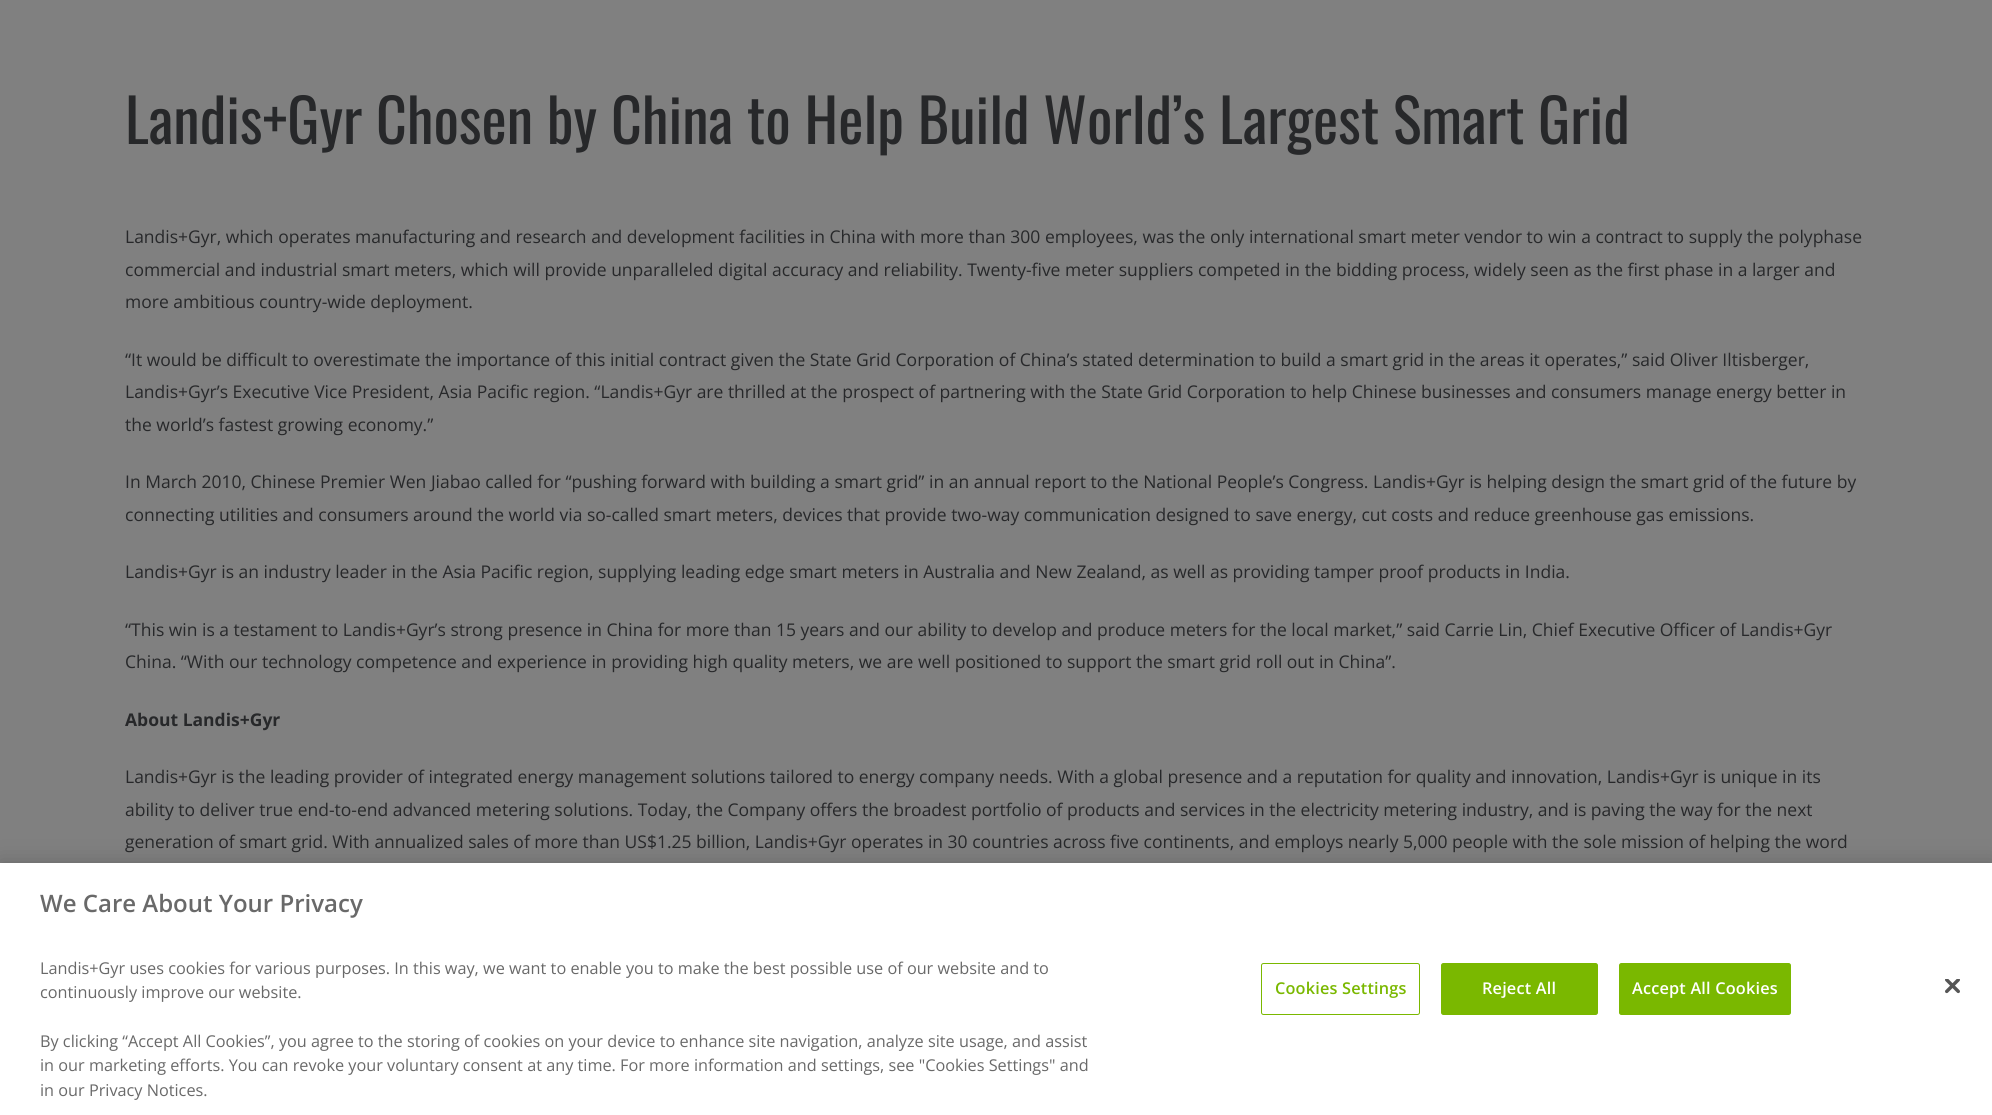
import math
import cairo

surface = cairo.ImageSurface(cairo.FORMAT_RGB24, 1992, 1115)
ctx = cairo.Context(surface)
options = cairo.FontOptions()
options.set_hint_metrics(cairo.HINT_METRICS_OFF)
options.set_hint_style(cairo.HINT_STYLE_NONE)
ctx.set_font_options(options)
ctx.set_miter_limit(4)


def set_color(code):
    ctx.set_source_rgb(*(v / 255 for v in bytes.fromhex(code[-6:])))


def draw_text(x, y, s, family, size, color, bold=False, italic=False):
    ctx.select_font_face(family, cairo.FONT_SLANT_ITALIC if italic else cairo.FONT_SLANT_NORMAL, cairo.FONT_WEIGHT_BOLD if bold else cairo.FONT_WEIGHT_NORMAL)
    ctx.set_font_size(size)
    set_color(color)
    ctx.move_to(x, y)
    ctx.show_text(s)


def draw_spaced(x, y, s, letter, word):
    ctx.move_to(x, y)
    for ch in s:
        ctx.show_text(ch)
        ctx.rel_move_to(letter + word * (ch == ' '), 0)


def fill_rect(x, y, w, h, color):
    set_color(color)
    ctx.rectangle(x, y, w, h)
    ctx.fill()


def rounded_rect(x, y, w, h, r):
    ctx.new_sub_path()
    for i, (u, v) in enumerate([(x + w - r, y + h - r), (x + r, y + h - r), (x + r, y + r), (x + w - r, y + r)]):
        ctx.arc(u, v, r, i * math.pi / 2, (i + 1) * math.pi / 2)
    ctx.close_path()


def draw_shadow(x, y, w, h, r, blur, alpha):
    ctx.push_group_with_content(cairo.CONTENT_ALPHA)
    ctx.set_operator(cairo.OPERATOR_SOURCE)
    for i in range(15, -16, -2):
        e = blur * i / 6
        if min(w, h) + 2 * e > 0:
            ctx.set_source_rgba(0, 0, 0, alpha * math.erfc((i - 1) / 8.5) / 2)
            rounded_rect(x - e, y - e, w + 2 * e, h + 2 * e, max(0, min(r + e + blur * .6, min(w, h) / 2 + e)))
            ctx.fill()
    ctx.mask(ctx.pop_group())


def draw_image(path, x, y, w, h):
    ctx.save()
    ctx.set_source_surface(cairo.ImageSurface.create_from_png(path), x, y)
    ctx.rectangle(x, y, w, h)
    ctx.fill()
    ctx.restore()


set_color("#808080")
ctx.paint()
draw_text(125, 144, "Landis+Gyr Chosen by China to Help Build World’s Largest Smart Grid", "Oswald", 60, "#27282a")
draw_text(125, 243, "Landis+Gyr, which operates manufacturing and research and development facilities in China with more than 300 employees, was the only international smart meter vendor to win a contract to supply the polyphase", "Open Sans", 17.5, "#27282a")
draw_text(125, 276, "commercial and industrial smart meters, which will provide unparalleled digital accuracy and reliability. Twenty-five meter suppliers competed in the bidding process, widely seen as the first phase in a larger and", "Open Sans", 17.5, "#27282a")
draw_text(125, 308, "more ambitious country-wide deployment.", "Open Sans", 17.5, "#27282a")
draw_text(125, 366, "“It would be difficult to overestimate the importance of this initial contract given the State Grid Corporation of China’s stated determination to build a smart grid in the areas it operates,” said Oliver Iltisberger,", "Open Sans", 17.5, "#27282a")
draw_text(125, 398, "Landis+Gyr’s Executive Vice President, Asia Pacific region. “Landis+Gyr are thrilled at the prospect of partnering with the State Grid Corporation to help Chinese businesses and consumers manage energy better in", "Open Sans", 17.5, "#27282a")
draw_text(125, 431, "the world’s fastest growing economy.”", "Open Sans", 17.5, "#27282a")
draw_text(125, 488, "In March 2010, Chinese Premier Wen Jiabao called for “pushing forward with building a smart grid” in an annual report to the National People’s Congress. Landis+Gyr is helping design the smart grid of the future by", "Open Sans", 17.5, "#27282a")
draw_text(125, 521, "connecting utilities and consumers around the world via so-called smart meters, devices that provide two-way communication designed to save energy, cut costs and reduce greenhouse gas emissions.", "Open Sans", 17.5, "#27282a")
draw_text(125, 578, "Landis+Gyr is an industry leader in the Asia Pacific region, supplying leading edge smart meters in Australia and New Zealand, as well as providing tamper proof products in India.", "Open Sans", 17.5, "#27282a")
draw_text(125, 636, "“This win is a testament to Landis+Gyr’s strong presence in China for more than 15 years and our ability to develop and produce meters for the local market,” said Carrie Lin, Chief Executive Officer of Landis+Gyr", "Open Sans", 17.5, "#27282a")
draw_text(125, 668, "China. “With our technology competence and experience in providing high quality meters, we are well positioned to support the smart grid roll out in China”.", "Open Sans", 17.5, "#27282a")
draw_text(125, 726, "About Landis+Gyr", "Open Sans", 17.5, "#27282a", bold=True)
draw_text(125, 783, "Landis+Gyr is the leading provider of integrated energy management solutions tailored to energy company needs. With a global presence and a reputation for quality and innovation, Landis+Gyr is unique in its", "Open Sans", 17.5, "#27282a")
draw_text(125, 816, "ability to deliver true end-to-end advanced metering solutions. Today, the Company offers the broadest portfolio of products and services in the electricity metering industry, and is paving the way for the next", "Open Sans", 17.5, "#27282a")
draw_text(125, 848, "generation of smart grid. With annualized sales of more than US$1.25 billion, Landis+Gyr operates in 30 countries across five continents, and employs nearly 5,000 people with the sole mission of helping the word", "Open Sans", 17.5, "#27282a")
set_color("#000000")
draw_shadow(0, 863, 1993, 252, 0, 11, 0.2)
fill_rect(0, 863, 1992, 252, "#ffffff")
draw_text(40, 912, "We Care About Your Privacy", "Open Sans SemiBold", 24, "#696969")
draw_text(40, 974, "Landis+Gyr uses cookies for various purposes. In this way, we want to enable you to make the best possible use of our website and to", "Open Sans", 16.25, "#696969")
draw_text(40, 998, "continuously improve our website.", "Open Sans", 16.25, "#696969")
draw_text(40, 1047, "By clicking “Accept All Cookies”, you agree to the storing of cookies on your device to enhance site navigation, analyze site usage, and assist", "Open Sans", 16.25, "#696969")
draw_text(40, 1071, "in our marketing efforts. You can revoke your voluntary consent at any time. For more information and settings, see \"Cookies Settings\" and", "Open Sans", 16.25, "#696969")
draw_text(40, 1096, "in our Privacy Notices.", "Open Sans", 16.25, "#696969")
rounded_rect(1261.5, 963.5, 158, 51, 2)
set_color("#7ab800")
ctx.set_line_width(1)
ctx.stroke()
ctx.select_font_face("Open Sans SemiBold")
draw_spaced(1275, 994, "Cookies Settings", 0.2, 0)
rounded_rect(1441.5, 963.5, 156, 51, 2)
ctx.fill_preserve()
ctx.stroke()
set_color("#ffffff")
draw_spaced(1482, 994, "Reject All", 0.2, 0)
set_color("#7ab800")
rounded_rect(1619.5, 963.5, 171, 51, 2)
ctx.fill_preserve()
ctx.stroke()
set_color("#ffffff")
draw_spaced(1632, 994, "Accept All Cookies", 0.2, 0)
draw_image("assets/img1.png", 1945, 979, 15, 15)
surface.write_to_png("output.png")
